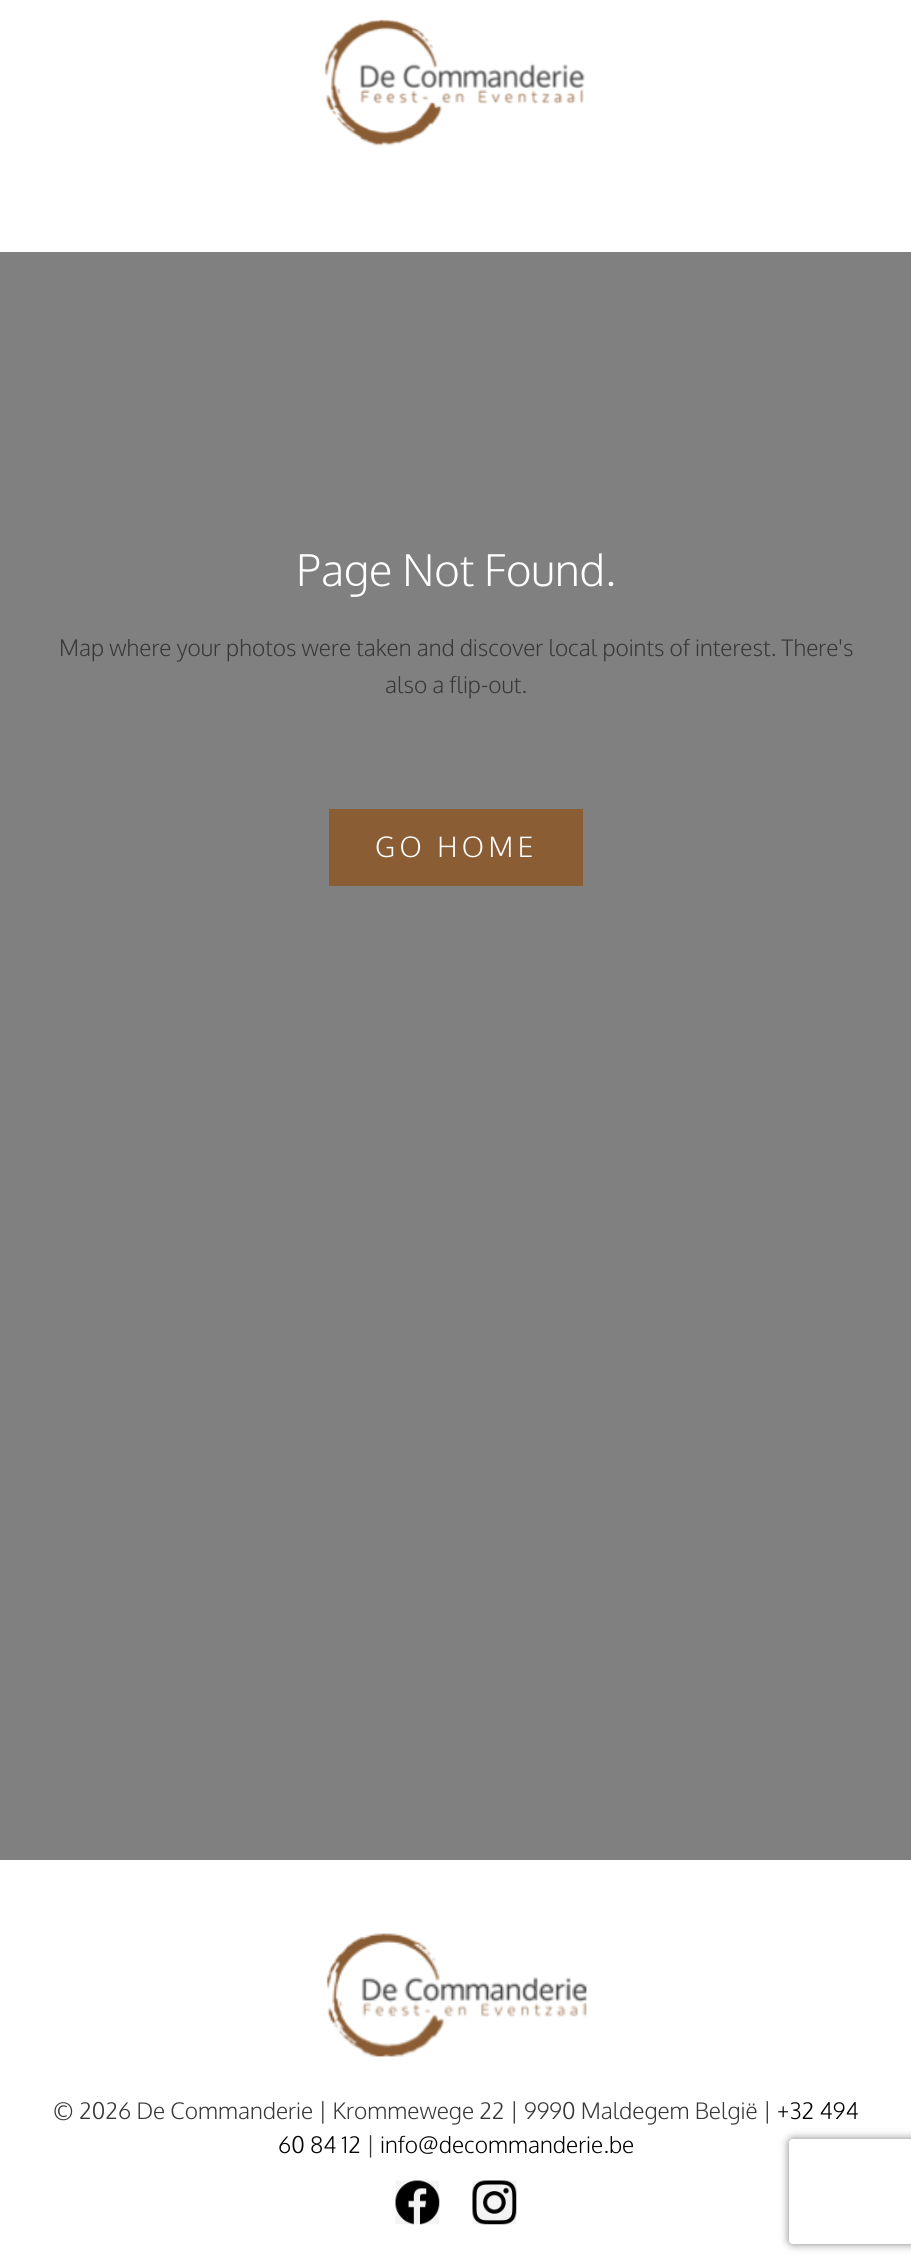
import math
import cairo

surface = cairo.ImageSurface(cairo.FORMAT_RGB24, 911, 2268)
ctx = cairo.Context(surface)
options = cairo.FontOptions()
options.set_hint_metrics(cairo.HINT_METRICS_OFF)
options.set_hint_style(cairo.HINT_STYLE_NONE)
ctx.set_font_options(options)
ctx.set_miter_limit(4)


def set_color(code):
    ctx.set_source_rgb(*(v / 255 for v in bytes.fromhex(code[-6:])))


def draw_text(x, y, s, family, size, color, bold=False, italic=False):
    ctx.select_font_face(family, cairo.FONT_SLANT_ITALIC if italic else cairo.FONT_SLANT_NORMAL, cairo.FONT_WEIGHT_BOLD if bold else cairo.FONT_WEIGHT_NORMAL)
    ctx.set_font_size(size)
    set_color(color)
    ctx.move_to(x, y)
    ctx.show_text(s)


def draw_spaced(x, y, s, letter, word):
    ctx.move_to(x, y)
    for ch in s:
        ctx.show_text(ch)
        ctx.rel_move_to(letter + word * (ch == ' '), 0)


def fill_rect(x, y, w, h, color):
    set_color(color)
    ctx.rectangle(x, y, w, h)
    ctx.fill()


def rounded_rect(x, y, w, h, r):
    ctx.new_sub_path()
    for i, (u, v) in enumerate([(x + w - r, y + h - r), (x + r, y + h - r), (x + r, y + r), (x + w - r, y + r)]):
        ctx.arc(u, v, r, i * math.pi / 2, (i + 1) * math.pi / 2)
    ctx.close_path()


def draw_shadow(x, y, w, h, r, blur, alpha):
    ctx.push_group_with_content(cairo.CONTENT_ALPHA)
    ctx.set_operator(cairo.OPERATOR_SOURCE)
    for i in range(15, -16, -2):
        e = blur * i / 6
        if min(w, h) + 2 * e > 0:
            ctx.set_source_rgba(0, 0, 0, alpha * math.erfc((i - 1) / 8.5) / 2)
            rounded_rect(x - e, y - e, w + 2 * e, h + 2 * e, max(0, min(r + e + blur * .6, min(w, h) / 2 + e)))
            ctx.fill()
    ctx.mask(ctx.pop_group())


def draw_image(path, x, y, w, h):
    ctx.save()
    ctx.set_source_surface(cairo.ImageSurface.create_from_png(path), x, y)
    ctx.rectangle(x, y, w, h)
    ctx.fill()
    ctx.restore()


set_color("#ffffff")
ctx.paint()
draw_image("assets/img1.png", 324, 19, 261, 127)
fill_rect(0, 252, 911, 1608, "#808080")
draw_text(296, 586, "Page Not Found.", "Oxygen Light", 43.75, "#ffffff")
draw_text(59, 656, "Map where your photos were taken and discover local points of interest. There's", "Oxygen Light", 22.75, "#383838")
draw_text(385, 693, "also a flip-out.", "Oxygen Light", 22.75, "#383838")
fill_rect(329, 809, 254, 77, "#8a5d34")
ctx.set_font_size(28)
set_color("#ffffff")
draw_spaced(375, 857, "GO HOME", 4.5, 0)
draw_image("assets/img2.png", 326, 1933, 261, 124)
draw_text(53, 2119, "© 2026 De Commanderie | Krommewege 22 | 9990 Maldegem België |", "Oxygen Light", 22.75, "#383838")
draw_text(777, 2119, "+32 494", "Oxygen Light", 22.75, "#000000")
draw_text(278, 2153, "60 84 12", "Oxygen Light", 22.75, "#000000")
draw_text(366, 2153, "|", "Oxygen Light", 22.75, "#383838")
draw_text(380, 2153, "info@decommanderie.be", "Oxygen Light", 22.75, "#000000")
draw_image("assets/img3.png", 395, 2180, 45, 45)
draw_image("assets/img4.png", 472, 2180, 45, 45)
ctx.save()
ctx.set_fill_rule(cairo.FILL_RULE_EVEN_ODD)
ctx.new_path()
ctx.move_to(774, 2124)
ctx.line_to(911, 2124)
ctx.line_to(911, 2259)
ctx.line_to(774, 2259)
ctx.close_path()
ctx.move_to(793, 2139)
ctx.line_to(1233, 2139)
ctx.curve_to(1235, 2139, 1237, 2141, 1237, 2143)
ctx.line_to(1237, 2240)
ctx.curve_to(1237, 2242, 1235, 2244, 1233, 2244)
ctx.line_to(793, 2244)
ctx.curve_to(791, 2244, 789, 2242, 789, 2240)
ctx.line_to(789, 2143)
ctx.curve_to(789, 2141, 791, 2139, 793, 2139)
ctx.close_path()
ctx.clip()
set_color("#808080")
draw_shadow(789, 2139, 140, 105, 4, 4.5, 1)
ctx.restore()
surface.write_to_png("output.png")
